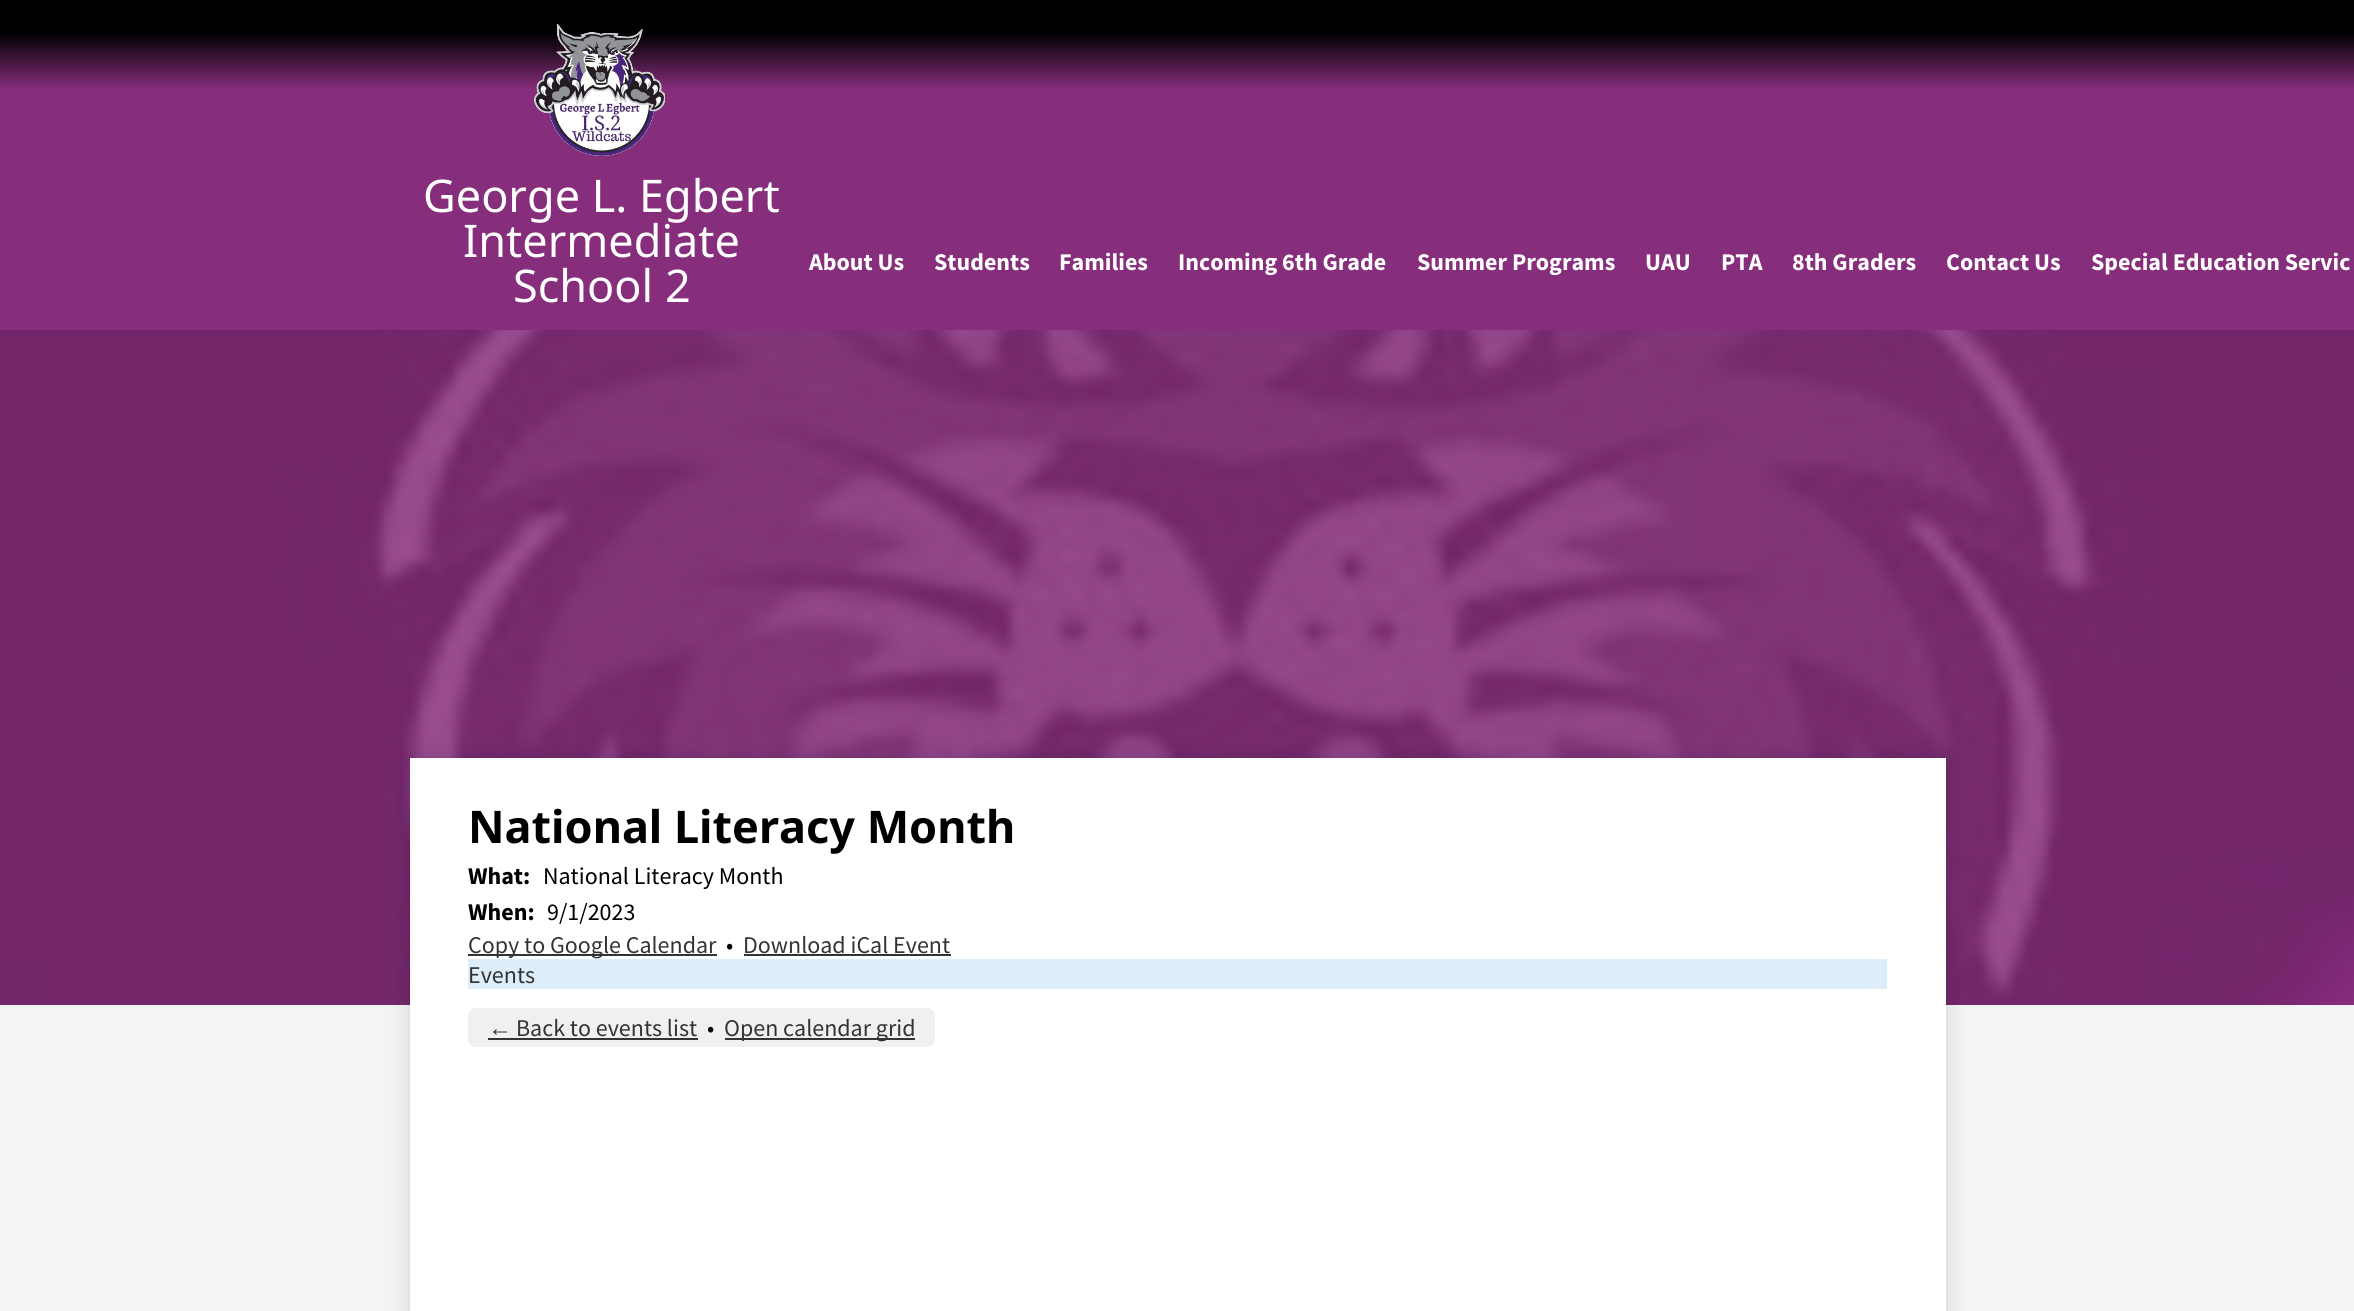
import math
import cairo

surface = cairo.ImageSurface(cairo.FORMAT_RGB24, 2354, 1311)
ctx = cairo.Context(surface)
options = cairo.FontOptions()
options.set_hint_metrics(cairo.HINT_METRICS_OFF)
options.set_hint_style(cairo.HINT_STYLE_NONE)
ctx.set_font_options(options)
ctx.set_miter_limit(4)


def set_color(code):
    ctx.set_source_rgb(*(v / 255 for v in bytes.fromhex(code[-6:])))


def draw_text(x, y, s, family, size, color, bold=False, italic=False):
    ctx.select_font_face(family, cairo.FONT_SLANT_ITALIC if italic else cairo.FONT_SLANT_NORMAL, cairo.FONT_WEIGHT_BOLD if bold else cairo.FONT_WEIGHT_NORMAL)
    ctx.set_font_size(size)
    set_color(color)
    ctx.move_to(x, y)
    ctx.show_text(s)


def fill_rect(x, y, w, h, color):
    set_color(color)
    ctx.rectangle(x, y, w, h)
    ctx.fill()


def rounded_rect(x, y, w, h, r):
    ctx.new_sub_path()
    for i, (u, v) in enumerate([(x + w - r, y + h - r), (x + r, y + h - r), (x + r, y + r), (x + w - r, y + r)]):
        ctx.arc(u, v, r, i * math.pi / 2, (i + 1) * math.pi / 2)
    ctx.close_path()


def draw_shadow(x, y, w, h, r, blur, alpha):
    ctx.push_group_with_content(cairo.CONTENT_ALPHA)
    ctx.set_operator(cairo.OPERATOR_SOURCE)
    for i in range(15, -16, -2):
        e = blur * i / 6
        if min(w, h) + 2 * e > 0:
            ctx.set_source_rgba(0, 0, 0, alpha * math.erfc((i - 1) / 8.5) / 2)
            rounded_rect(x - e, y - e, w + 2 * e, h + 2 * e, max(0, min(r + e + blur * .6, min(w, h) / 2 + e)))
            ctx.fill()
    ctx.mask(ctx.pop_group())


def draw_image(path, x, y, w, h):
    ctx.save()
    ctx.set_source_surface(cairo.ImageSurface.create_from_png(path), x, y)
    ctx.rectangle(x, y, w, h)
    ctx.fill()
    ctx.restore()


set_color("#f4f4f4")
ctx.paint()
gradient = cairo.LinearGradient(1178, 0, 1178, 330)
gradient.add_color_stop_rgba(0.1, 0, 0, 0, 1)
gradient.add_color_stop_rgba(0.27, 0.525, 0.176, 0.486, 1)
ctx.set_source(gradient)
ctx.rectangle(0, 0, 2354, 330)
ctx.fill()
draw_image("assets/img1.png", 534, 24, 131, 132)
draw_text(423, 212, "George L. Egbert", "Noto Sans", 45, "#ffffff")
draw_text(463, 257, "Intermediate", "Noto Sans", 45, "#ffffff")
draw_text(513, 302, "School 2", "Noto Sans", 45, "#ffffff")
draw_text(809, 270, "About Us", "Source Sans Pro", 24, "#ffffff", bold=True)
draw_text(934, 270, "Students", "Source Sans Pro", 24, "#ffffff", bold=True)
draw_text(1059, 270, "Families", "Source Sans Pro", 24, "#ffffff", bold=True)
draw_text(1178, 270, "Incoming 6th Grade", "Source Sans Pro", 24, "#ffffff", bold=True)
draw_text(1417, 270, "Summer Programs", "Source Sans Pro", 24, "#ffffff", bold=True)
draw_text(1645, 270, "UAU", "Source Sans Pro", 24, "#ffffff", bold=True)
draw_text(1721, 270, "PTA", "Source Sans Pro", 24, "#ffffff", bold=True)
draw_text(1792, 270, "8th Graders", "Source Sans Pro", 24, "#ffffff", bold=True)
draw_text(1946, 270, "Contact Us", "Source Sans Pro", 24, "#ffffff", bold=True)
draw_text(2091, 270, "Special Education Servic", "Source Sans Pro", 24, "#ffffff", bold=True)
draw_image("assets/img2.png", 0, 330, 2354, 675)
set_color("#000000")
draw_shadow(410, 758, 1536, 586, 0, 11, 0.15)
fill_rect(410, 758, 1536, 553, "#ffffff")
draw_text(468, 843, "National Literacy Month", "Noto Sans", 45, "#000000", bold=True)
draw_text(468, 884, "What:", "Source Sans Pro", 24, "#000000", bold=True)
draw_text(543, 884, "National Literacy Month", "Source Sans Pro", 24, "#000000")
draw_text(468, 920, "When:", "Source Sans Pro", 24, "#000000", bold=True)
draw_text(547, 920, "9/1/2023", "Source Sans Pro", 24, "#000000")
fill_rect(468, 954, 249, 2, "#333333")
draw_text(468, 953, "Copy to Google Calendar", "Source Sans Pro", 24, "#333333")
draw_text(726, 953, "•", "Source Sans Pro", 24, "#000000")
draw_text(743, 953, "Download iCal Event", "Source Sans Pro", 24, "#333333")
fill_rect(744, 954, 207, 2, "#333333")
fill_rect(468, 959, 1419, 30, "#ddeefa")
draw_text(468, 983, "Events", "Source Sans Pro", 24, "#333333")
set_color("#f0f0f0")
rounded_rect(468, 1008, 467, 39, 8)
ctx.fill()
draw_text(488, 1036, "←", "Liberation Sans", 24, "#333333")
fill_rect(488, 1038, 210, 2, "#333333")
draw_text(516, 1036, "Back to events list", "Source Sans Pro", 24, "#333333")
draw_text(707, 1036, "•", "Source Sans Pro", 24, "#000000")
fill_rect(725, 1038, 190, 2, "#333333")
draw_text(724, 1036, "Open calendar grid", "Source Sans Pro", 24, "#333333")
surface.write_to_png("output.png")
